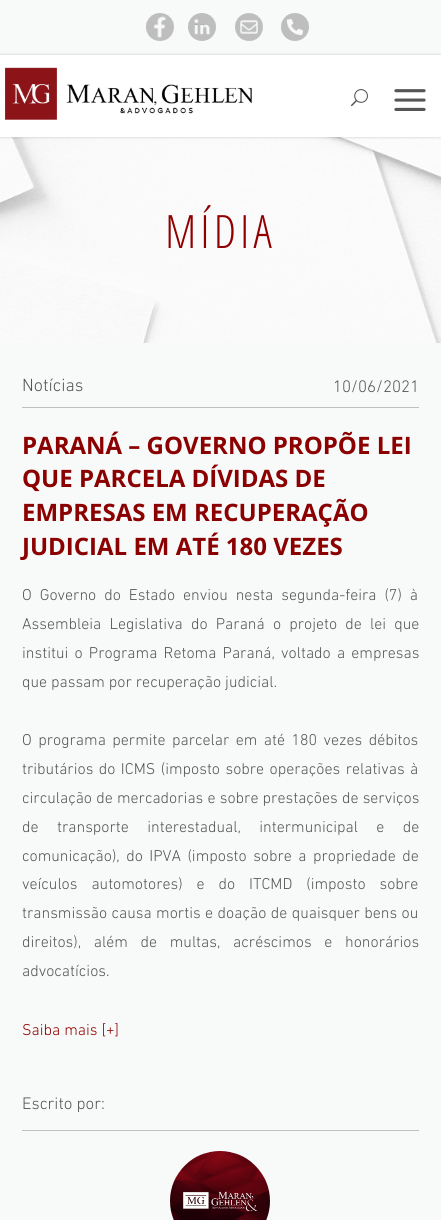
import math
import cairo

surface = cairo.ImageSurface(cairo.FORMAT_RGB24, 441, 1220)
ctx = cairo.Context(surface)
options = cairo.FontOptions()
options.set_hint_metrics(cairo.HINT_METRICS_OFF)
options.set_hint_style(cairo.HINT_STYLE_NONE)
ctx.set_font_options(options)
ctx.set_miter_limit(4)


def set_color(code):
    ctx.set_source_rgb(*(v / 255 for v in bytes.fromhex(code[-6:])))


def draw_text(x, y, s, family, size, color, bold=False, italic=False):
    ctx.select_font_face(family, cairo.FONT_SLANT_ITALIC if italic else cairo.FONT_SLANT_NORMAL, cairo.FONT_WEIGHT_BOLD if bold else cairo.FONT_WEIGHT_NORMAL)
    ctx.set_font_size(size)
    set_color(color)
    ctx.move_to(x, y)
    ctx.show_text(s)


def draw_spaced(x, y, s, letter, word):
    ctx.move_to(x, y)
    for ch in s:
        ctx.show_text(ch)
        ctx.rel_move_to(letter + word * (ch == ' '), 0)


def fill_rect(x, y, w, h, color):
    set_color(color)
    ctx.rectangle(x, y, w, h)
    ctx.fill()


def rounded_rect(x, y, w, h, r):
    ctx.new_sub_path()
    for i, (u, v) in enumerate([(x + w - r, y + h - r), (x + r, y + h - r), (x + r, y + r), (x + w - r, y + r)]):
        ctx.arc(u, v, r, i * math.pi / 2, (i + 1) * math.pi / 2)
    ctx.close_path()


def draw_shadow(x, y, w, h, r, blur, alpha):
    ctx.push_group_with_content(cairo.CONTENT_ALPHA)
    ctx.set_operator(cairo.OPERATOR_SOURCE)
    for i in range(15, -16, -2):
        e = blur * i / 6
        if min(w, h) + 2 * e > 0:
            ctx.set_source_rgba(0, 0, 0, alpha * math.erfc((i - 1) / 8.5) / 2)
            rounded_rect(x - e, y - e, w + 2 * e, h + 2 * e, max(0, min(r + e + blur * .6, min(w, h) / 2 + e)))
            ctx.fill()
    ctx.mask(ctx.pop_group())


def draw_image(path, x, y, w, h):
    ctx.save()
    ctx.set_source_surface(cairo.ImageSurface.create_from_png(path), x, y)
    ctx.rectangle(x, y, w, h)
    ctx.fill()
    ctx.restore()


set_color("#f8faf9")
ctx.paint()
draw_image("assets/img1.png", 146, 13, 28, 28)
draw_image("assets/img2.png", 188, 13, 28, 28)
draw_image("assets/img3.png", 235, 13, 28, 28)
draw_image("assets/img4.png", 281, 13, 28, 28)
draw_image("assets/img8.png", 0, 137, 441, 206)
set_color("#000000")
draw_shadow(0, 55, 441, 82, 0, 1.5, 0.2)
fill_rect(0, 55, 441, 82, "#ffffff")
draw_image("assets/img5.png", 5, 67, 247, 53)
draw_image("assets/img6.png", 351, 89, 17, 18)
draw_image("assets/img7.png", 394, 89, 32, 22)
ctx.select_font_face("Open Sans Light")
ctx.set_font_size(46)
set_color("#910000")
draw_spaced(165, 248, "MÍDIA", 4, 0)
fill_rect(22, 407, 397, 1, "#bfbfbf")
draw_text(22, 391, "Notícias", "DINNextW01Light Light", 18, "#555555")
draw_text(333, 392, "10/06/2021", "DINNextW01Light Light", 17, "#555555")
draw_text(22, 454, "PARANÁ – GOVERNO PROPÕE LEI", "Open Sans", 24, "#8b0000", bold=True)
draw_text(22, 487, "QUE PARCELA DÍVIDAS DE", "Open Sans", 24, "#8b0000", bold=True)
draw_text(22, 521, "EMPRESAS EM RECUPERAÇÃO", "Open Sans", 24, "#8b0000", bold=True)
draw_text(22, 555, "JUDICIAL EM ATÉ 180 VEZES", "Open Sans", 24, "#8b0000", bold=True)
ctx.select_font_face("DINNextW01Light Light")
ctx.set_font_size(16)
set_color("#555555")
draw_spaced(22, 600, "O Governo do Estado enviou nesta segunda-feira (7) à", 0, 4)
draw_spaced(22, 629, "Assembleia Legislativa do Paraná o projeto de lei que", 0, 4.25)
draw_spaced(22, 658, "institui o Programa Retoma Paraná, voltado a empresas", 0, 2.25)
draw_text(22, 687, "que passam por recuperação judicial.", "DINNextW01Light Light", 16, "#555555")
draw_spaced(22, 745, "O programa permite parcelar em até 180 vezes débitos", 0, 2.5)
draw_spaced(22, 774, "tributários do ICMS (imposto sobre operações relativas à", 0, 1.5)
draw_spaced(22, 803, "circulação de mercadorias e sobre prestações de serviços", 0, 0.25)
draw_spaced(22, 832, "de transporte interestadual, intermunicipal e de", 0, 14.5)
draw_spaced(22, 861, "comunicação), do IPVA (imposto sobre a propriedade de", 0, 2.5)
draw_spaced(22, 889, "veículos automotores) e do ITCMD (imposto sobre", 0, 10)
draw_spaced(22, 918, "transmissão causa mortis e doação de quaisquer bens ou", 0, 0.5)
draw_spaced(22, 947, "direitos), além de multas, acréscimos e honorários", 0, 8.75)
draw_text(22, 976, "advocatícios.", "DINNextW01Light Light", 16, "#555555")
draw_text(22, 1035, "Saiba mais [+]", "DINNextW01Light Light", 16, "#910000")
draw_text(22, 1109, "Escrito por:", "DINNextW01Light Light", 17, "#555555")
fill_rect(22, 1130, 397, 1, "#bfbfbf")
draw_image("assets/img9.png", 170, 1151, 100, 69)
surface.write_to_png("output.png")
